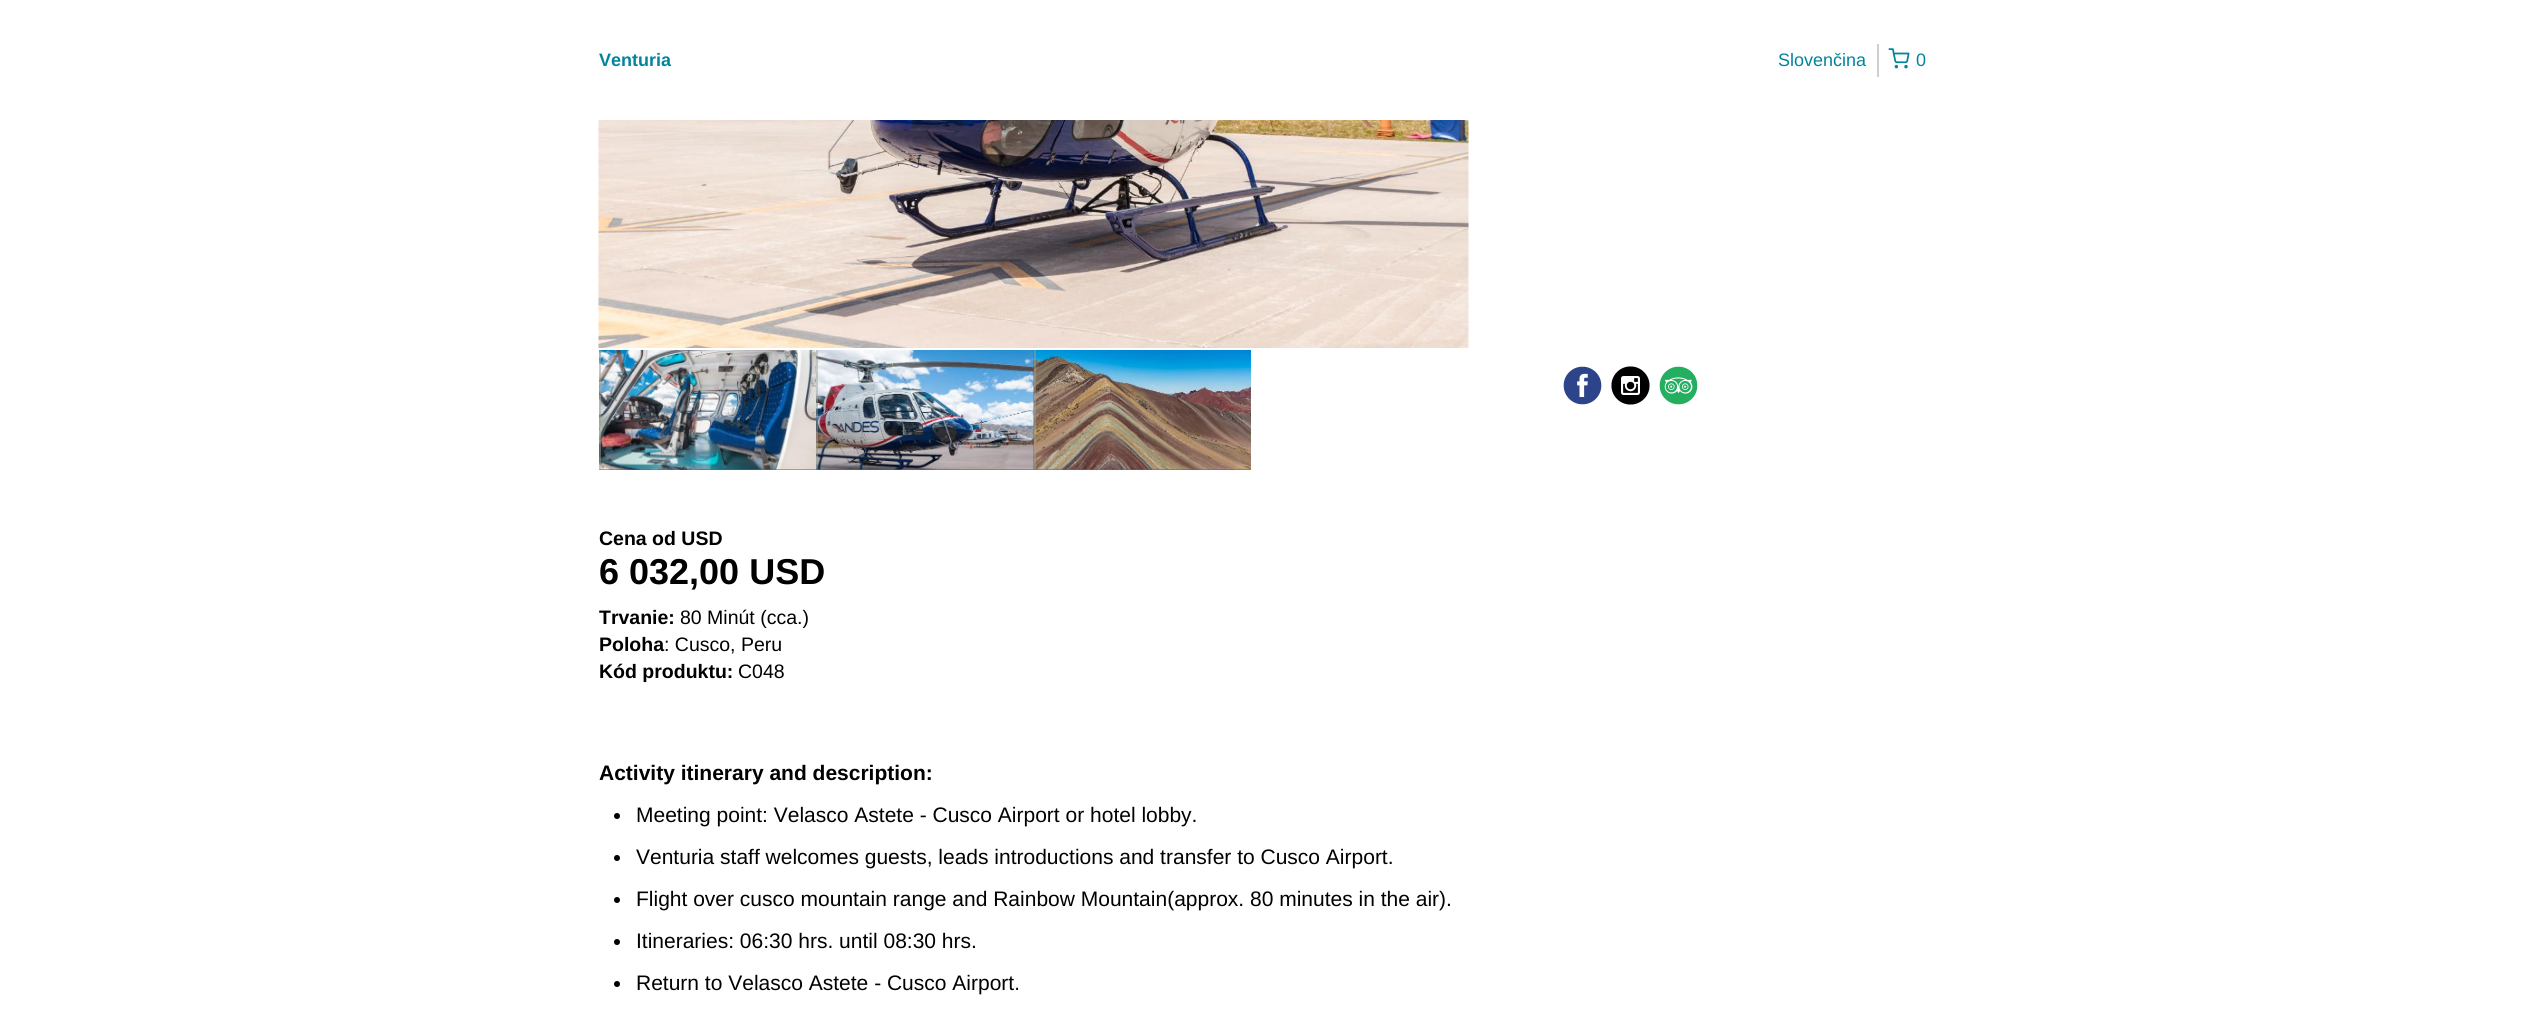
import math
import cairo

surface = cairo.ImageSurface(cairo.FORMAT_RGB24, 2546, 1020)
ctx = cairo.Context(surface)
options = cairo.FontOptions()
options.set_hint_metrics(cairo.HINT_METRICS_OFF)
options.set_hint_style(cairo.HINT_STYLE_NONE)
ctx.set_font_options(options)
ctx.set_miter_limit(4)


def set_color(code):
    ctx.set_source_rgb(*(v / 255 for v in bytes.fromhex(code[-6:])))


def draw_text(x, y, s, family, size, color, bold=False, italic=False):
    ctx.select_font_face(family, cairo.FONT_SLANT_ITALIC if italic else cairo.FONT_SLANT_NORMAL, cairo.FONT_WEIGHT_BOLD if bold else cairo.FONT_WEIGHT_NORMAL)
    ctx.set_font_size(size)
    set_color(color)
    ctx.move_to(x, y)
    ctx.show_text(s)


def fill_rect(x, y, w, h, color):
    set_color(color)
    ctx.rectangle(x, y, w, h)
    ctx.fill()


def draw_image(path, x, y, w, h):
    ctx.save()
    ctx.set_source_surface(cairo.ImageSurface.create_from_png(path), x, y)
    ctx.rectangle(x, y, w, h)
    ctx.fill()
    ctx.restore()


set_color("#ffffff")
ctx.paint()
draw_text(599, 66, "Venturia", "Liberation Sans", 18, "#00859b", bold=True)
fill_rect(1877, 44, 2, 33, "#ccd1ca")
draw_text(1778, 66, "Slovenčina", "Liberation Sans", 18, "#00859b")
draw_image("assets/img1.png", 1888, 48, 22, 21)
draw_text(1916, 66, "0", "Liberation Sans", 18, "#00859b")
draw_image("assets/img2.png", 1563, 366, 39, 39)
draw_image("assets/img3.png", 1611, 366, 39, 39)
draw_image("assets/img4.png", 1659, 366, 39, 39)
draw_image("assets/img5.png", 598, 120, 871, 228)
fill_rect(599, 469, 217, 1, "#3c68b4")
draw_image("assets/img6.png", 599, 350, 217, 120)
ctx.set_source_rgba(0.596, 0.639, 0.58, 0.5)
ctx.rectangle(599, 350, 2, 120)
ctx.fill()
fill_rect(816, 350, 218, 120, "#3c68b4")
draw_image("assets/img7.png", 816, 350, 218, 120)
ctx.set_source_rgba(0.596, 0.639, 0.58, 0.5)
ctx.rectangle(816, 350, 2, 120)
ctx.fill()
fill_rect(1034, 469, 217, 1, "#3c68b4")
draw_image("assets/img8.png", 1034, 350, 217, 120)
ctx.set_source_rgba(0.596, 0.639, 0.58, 0.5)
ctx.rectangle(1034, 350, 2, 120)
ctx.fill()
draw_text(599, 545, "Cena od USD", "Liberation Sans", 19.5, "#000000", bold=True)
draw_text(599, 584, "6 032,00 USD", "Liberation Sans", 36, "#000000", bold=True)
draw_text(599, 624, "Trvanie:", "Liberation Sans", 19.5, "#000000", bold=True)
draw_text(680, 624, "80 Minút (cca.)", "Liberation Sans", 19.5, "#000000")
draw_text(599, 651, "Poloha", "Liberation Sans", 19.5, "#000000", bold=True)
draw_text(664, 651, ": Cusco, Peru", "Liberation Sans", 19.5, "#000000")
draw_text(599, 678, "Kód produktu:", "Liberation Sans", 19.5, "#000000", bold=True)
draw_text(738, 678, "C048", "Liberation Sans", 19.5, "#000000")
draw_text(599, 780, "Activity itinerary and description:", "Liberation Sans", 21, "#000000", bold=True)
ctx.new_path()
ctx.arc(617, 816, 3, 0, 2 * math.pi)
ctx.fill()
draw_text(636, 822, "Meeting point: Velasco Astete - Cusco Airport or hotel lobby.", "Liberation Sans", 21, "#000000")
ctx.new_path()
ctx.arc(617, 858, 3, 0, 2 * math.pi)
ctx.fill()
draw_text(636, 864, "Venturia staff welcomes guests, leads introductions and transfer to Cusco Airport.", "Liberation Sans", 21, "#000000")
ctx.new_path()
ctx.arc(617, 900, 3, 0, 2 * math.pi)
ctx.fill()
draw_text(636, 906, "Flight over cusco mountain range and Rainbow Mountain(approx. 80 minutes in the air).", "Liberation Sans", 21, "#000000")
ctx.new_path()
ctx.arc(617, 942, 3, 0, 2 * math.pi)
ctx.fill()
draw_text(636, 948, "Itineraries: 06:30 hrs. until 08:30 hrs.", "Liberation Sans", 21, "#000000")
ctx.new_path()
ctx.arc(617, 984, 3, 0, 2 * math.pi)
ctx.fill()
draw_text(636, 990, "Return to Velasco Astete - Cusco Airport.", "Liberation Sans", 21, "#000000")
surface.write_to_png("output.png")
